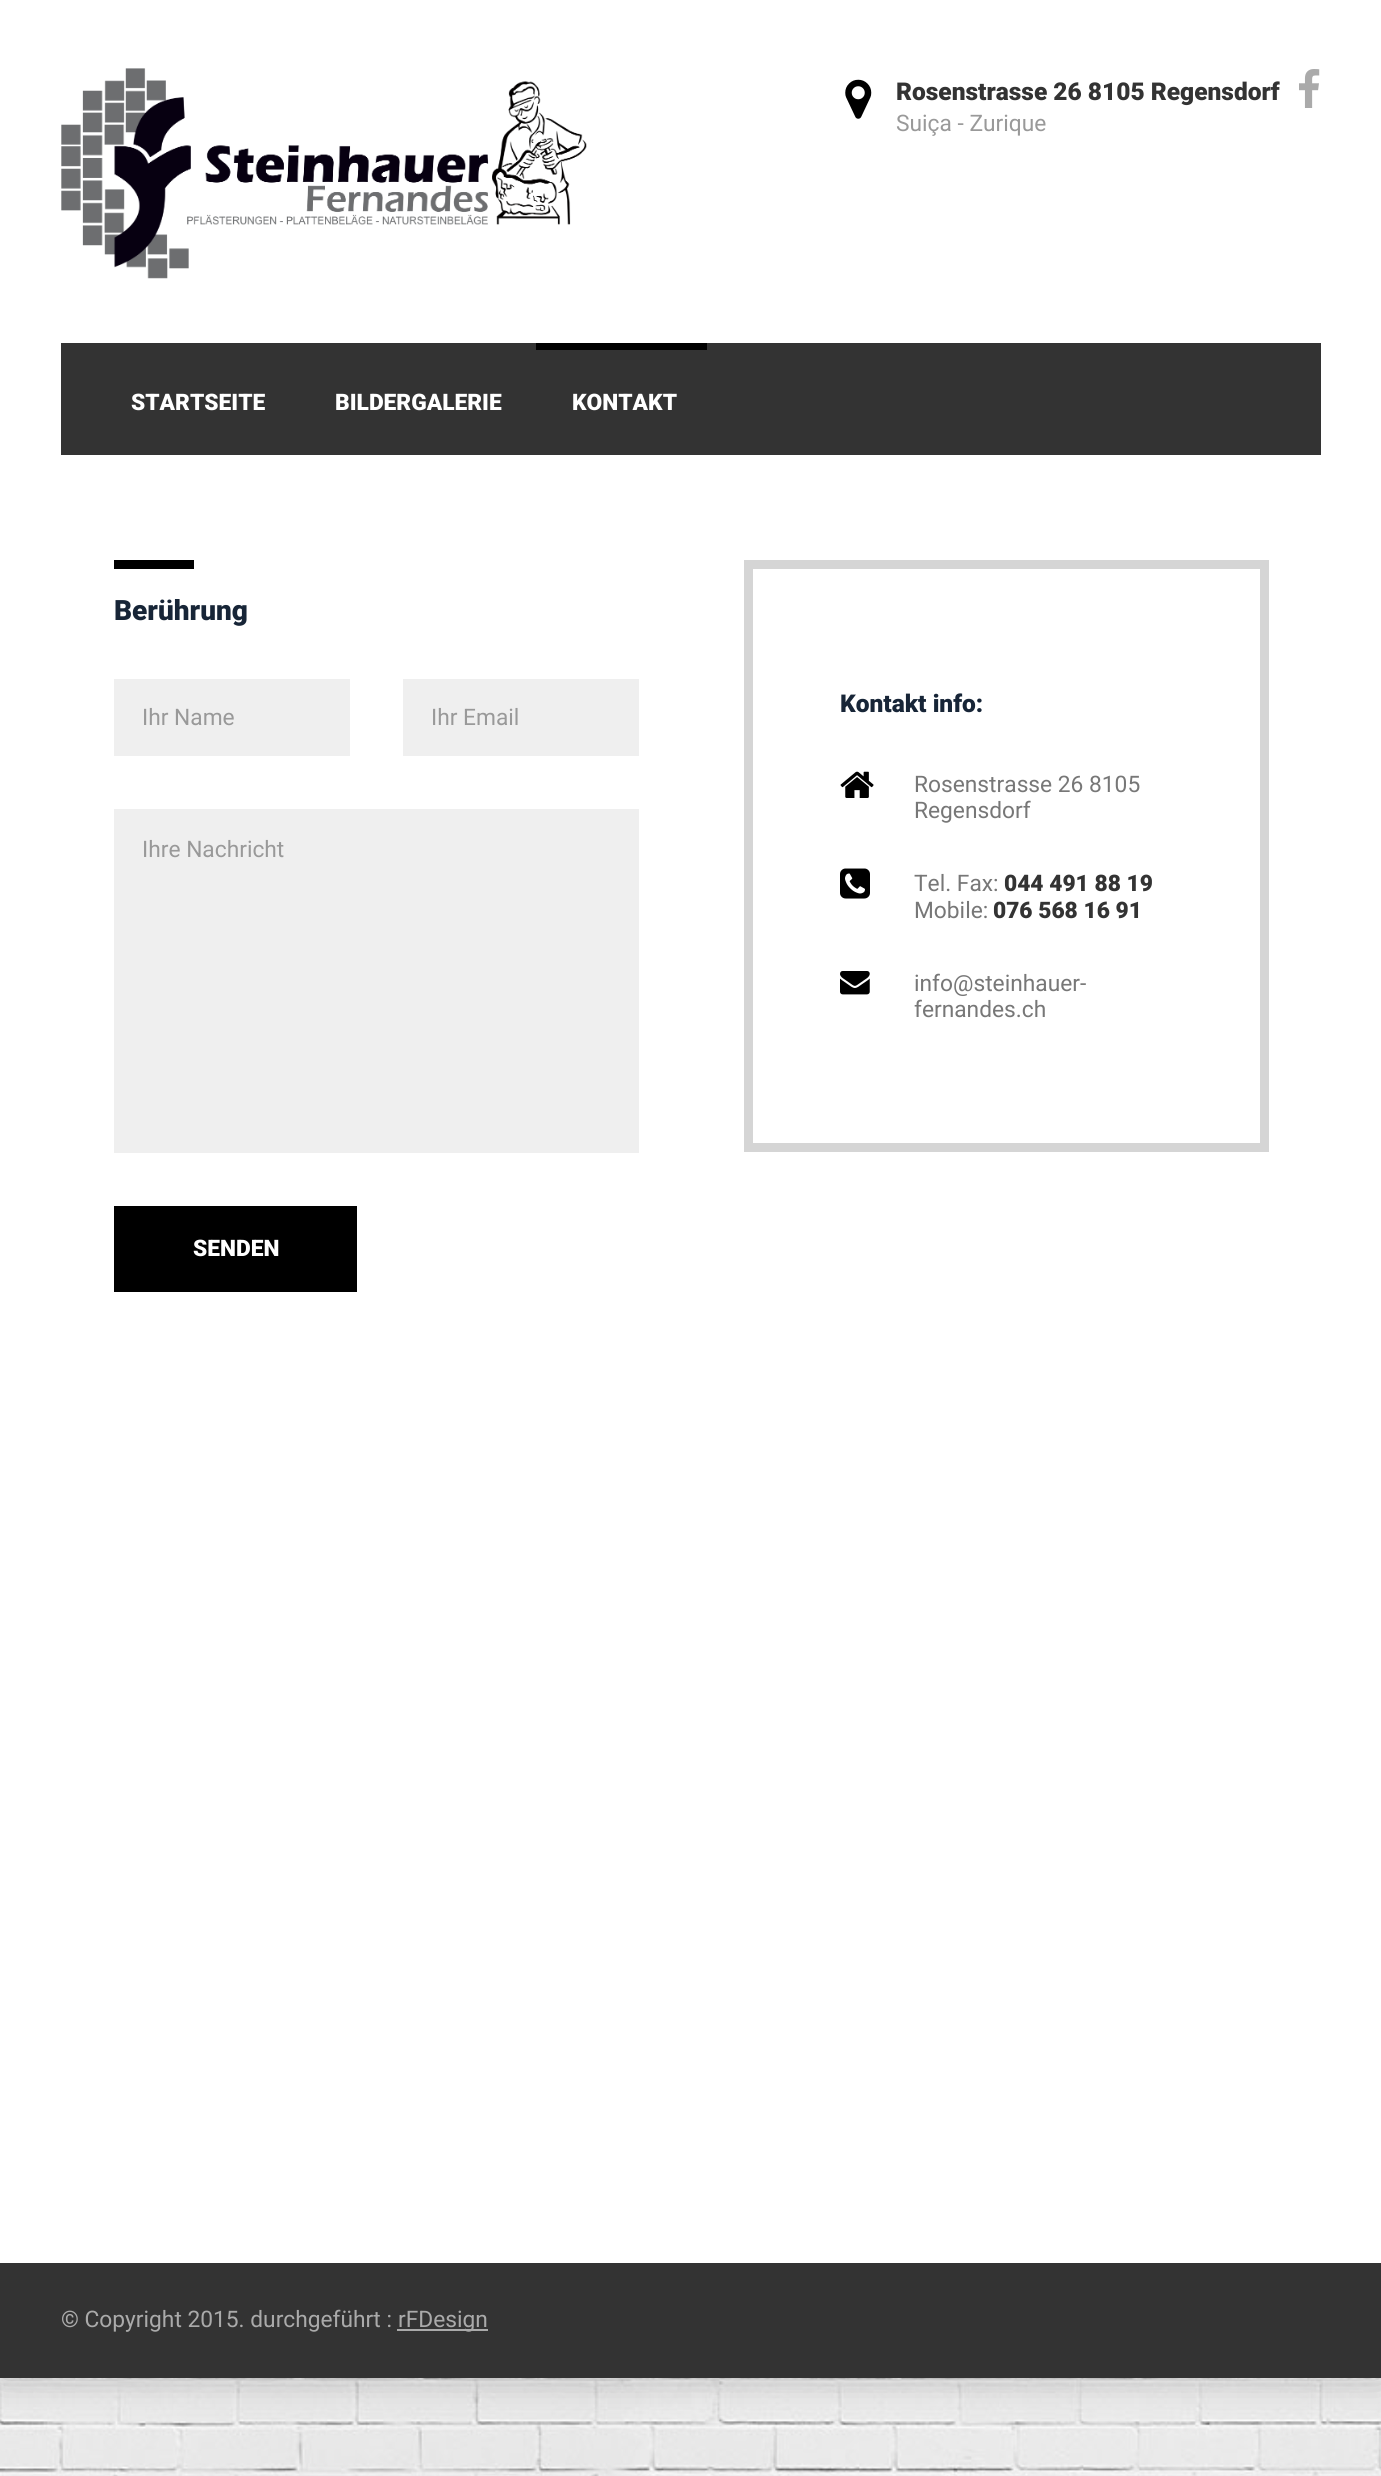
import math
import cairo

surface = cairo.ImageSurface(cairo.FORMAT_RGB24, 1381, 2476)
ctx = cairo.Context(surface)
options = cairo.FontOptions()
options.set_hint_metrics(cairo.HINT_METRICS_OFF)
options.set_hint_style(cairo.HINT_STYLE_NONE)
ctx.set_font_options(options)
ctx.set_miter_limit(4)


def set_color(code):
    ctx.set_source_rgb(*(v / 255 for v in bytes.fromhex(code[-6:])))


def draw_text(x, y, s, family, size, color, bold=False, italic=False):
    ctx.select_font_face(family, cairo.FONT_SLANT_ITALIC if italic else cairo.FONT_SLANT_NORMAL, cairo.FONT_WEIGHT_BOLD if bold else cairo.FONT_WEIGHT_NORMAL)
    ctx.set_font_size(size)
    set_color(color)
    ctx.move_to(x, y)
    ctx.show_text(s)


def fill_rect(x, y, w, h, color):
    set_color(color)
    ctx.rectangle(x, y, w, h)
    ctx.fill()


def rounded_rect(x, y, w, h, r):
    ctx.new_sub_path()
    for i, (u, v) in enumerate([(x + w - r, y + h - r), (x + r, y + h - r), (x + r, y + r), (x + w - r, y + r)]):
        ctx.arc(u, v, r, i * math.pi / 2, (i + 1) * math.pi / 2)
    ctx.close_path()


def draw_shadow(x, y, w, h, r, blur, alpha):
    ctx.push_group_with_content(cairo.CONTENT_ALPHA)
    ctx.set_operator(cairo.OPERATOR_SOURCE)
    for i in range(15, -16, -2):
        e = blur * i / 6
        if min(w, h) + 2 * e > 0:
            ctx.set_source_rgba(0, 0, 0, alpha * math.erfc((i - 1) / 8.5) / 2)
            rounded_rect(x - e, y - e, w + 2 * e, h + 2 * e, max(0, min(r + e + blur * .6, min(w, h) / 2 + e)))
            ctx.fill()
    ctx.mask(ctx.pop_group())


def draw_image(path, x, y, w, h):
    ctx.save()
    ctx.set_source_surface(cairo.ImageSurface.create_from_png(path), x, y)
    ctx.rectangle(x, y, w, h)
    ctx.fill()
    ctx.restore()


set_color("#ffffff")
ctx.paint()
draw_image("assets/img1.png", 0, 2378, 1381, 98)
set_color("#000000")
draw_shadow(0, 0, 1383, 2378, 0, 17.5, 0.25)
fill_rect(0, 0, 1381, 2263, "#ffffff")
draw_image("assets/img2.png", 61, 68, 526, 211)
draw_image("assets/img3.png", 845, 79, 27, 40)
draw_text(896, 100, "Rosenstrasse 26 8105 Regensdorf", "Roboto Black", 24.5, "#333333")
draw_text(896, 131, "Suiça - Zurique", "Roboto", 22.75, "#999999")
draw_image("assets/img4.png", 1299, 69, 21, 39)
fill_rect(61, 343, 1260, 112, "#333333")
fill_rect(536, 343, 171, 7, "#000000")
draw_text(131, 410, "STARTSEITE", "Roboto Black", 22.75, "#ffffff")
draw_text(335, 410, "BILDERGALERIE", "Roboto Black", 22.75, "#ffffff")
draw_text(572, 410, "KONTAKT", "Roboto Black", 22.75, "#ffffff")
fill_rect(114, 560, 80, 9, "#000000")
draw_text(114, 620, "Berührung", "Roboto Black", 28, "#172537")
fill_rect(114, 679, 236, 77, "#efefef")
draw_text(142, 725, "Ihr Name", "Roboto", 22.75, "#999999")
fill_rect(403, 679, 236, 77, "#efefef")
draw_text(431, 725, "Ihr Email", "Roboto", 22.75, "#999999")
fill_rect(114, 809, 525, 344, "#efefef")
draw_text(142, 857, "Ihre Nachricht", "Roboto", 22.75, "#999999")
fill_rect(114, 1206, 243, 86, "#000000")
draw_text(193, 1256, "SENDEN", "Roboto Black", 22.75, "#ffffff")
ctx.rectangle(748.5, 564.5, 516, 583)
set_color("#d5d5d5")
ctx.set_line_width(9)
ctx.stroke()
draw_text(840, 712, "Kontakt info:", "Roboto Black", 24.5, "#172537")
draw_image("assets/img5.png", 840, 771, 34, 27)
draw_text(914, 792, "Rosenstrasse 26 8105", "Roboto", 22.75, "#777777")
draw_text(914, 818, "Regensdorf", "Roboto", 22.75, "#777777")
draw_image("assets/img6.png", 840, 868, 30, 31)
draw_text(914, 891, "Tel. Fax:", "Roboto", 22.75, "#777777")
draw_text(1004, 891, "044 491 88 19", "Roboto Black", 22.75, "#333333")
draw_text(914, 918, "Mobile:", "Roboto", 22.75, "#777777")
draw_text(993, 918, "076 568 16 91", "Roboto Black", 22.75, "#333333")
draw_image("assets/img7.png", 840, 971, 30, 24)
draw_text(914, 991, "info@steinhauer-", "Roboto", 22.75, "#777777")
draw_text(914, 1017, "fernandes.ch", "Roboto", 22.75, "#777777")
fill_rect(0, 2263, 1381, 115, "#333333")
draw_text(61, 2327, "© Copyright 2015. durchgeführt :", "Roboto", 22.75, "#aaaaaa")
fill_rect(397, 2329, 91, 2, "#aaaaaa")
draw_text(398, 2327, "rFDesign", "Roboto", 22.75, "#aaaaaa")
surface.write_to_png("output.png")
